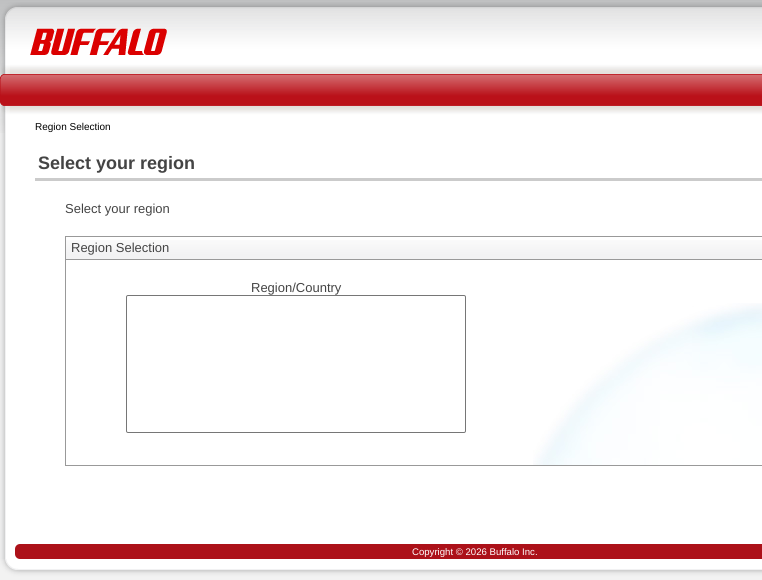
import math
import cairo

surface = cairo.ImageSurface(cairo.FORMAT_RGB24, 762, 580)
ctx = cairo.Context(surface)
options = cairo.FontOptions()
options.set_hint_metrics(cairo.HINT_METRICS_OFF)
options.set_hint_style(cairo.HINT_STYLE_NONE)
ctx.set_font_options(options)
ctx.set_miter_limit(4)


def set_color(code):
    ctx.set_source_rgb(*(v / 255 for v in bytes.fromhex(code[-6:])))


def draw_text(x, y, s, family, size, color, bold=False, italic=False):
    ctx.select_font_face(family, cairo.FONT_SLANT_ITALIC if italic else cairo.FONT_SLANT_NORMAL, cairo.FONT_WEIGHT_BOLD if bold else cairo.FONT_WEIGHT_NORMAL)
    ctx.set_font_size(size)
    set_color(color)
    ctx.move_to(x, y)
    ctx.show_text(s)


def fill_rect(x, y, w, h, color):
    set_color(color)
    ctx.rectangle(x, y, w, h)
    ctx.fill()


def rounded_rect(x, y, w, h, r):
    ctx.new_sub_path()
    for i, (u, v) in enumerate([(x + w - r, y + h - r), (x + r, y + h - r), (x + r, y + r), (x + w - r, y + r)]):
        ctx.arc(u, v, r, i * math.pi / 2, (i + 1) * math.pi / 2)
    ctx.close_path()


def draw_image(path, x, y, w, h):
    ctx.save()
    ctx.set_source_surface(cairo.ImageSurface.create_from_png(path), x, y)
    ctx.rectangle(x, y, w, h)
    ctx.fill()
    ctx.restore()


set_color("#f2f2f2")
ctx.paint()
draw_image("assets/img1.png", 0, 0, 762, 2)
draw_image("assets/img2.png", 0, 2, 762, 557)
draw_image("assets/img3.png", 30, 28, 137, 27)
draw_text(35, 130, "Region Selection", "Liberation Sans", 10, "#000000")
fill_rect(35, 178, 727, 3, "#cbcbcb")
draw_text(38, 169, "Select your region", "Liberation Sans", 18, "#444444", bold=True)
draw_text(65, 213, "Select your region", "Liberation Sans", 13, "#444444")
draw_image("assets/img4.png", 66, 240, 696, 19)
ctx.rectangle(65.5, 236.5, 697, 23)
set_color("#999999")
ctx.set_line_width(1)
ctx.stroke()
draw_text(71, 252, "Region Selection", "Liberation Sans", 13, "#444444")
draw_image("assets/img5.png", 533, 303, 229, 162)
fill_rect(65, 465, 697, 1, "#999999")
fill_rect(65, 260, 1, 206, "#999999")
draw_text(251, 292, "Region/Country", "Liberation Sans", 13, "#444444")
rounded_rect(126.5, 295.5, 339, 137, 1.5)
set_color("#767676")
ctx.stroke()
set_color("#ac1119")
rounded_rect(15, 544, 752, 15, 5)
ctx.fill()
draw_text(412, 555, "Copyright © 2026 Buffalo Inc.", "Liberation Sans", 9.6, "#ffffff")
draw_image("assets/img6.png", 0, 559, 762, 19)
surface.write_to_png("output.png")
